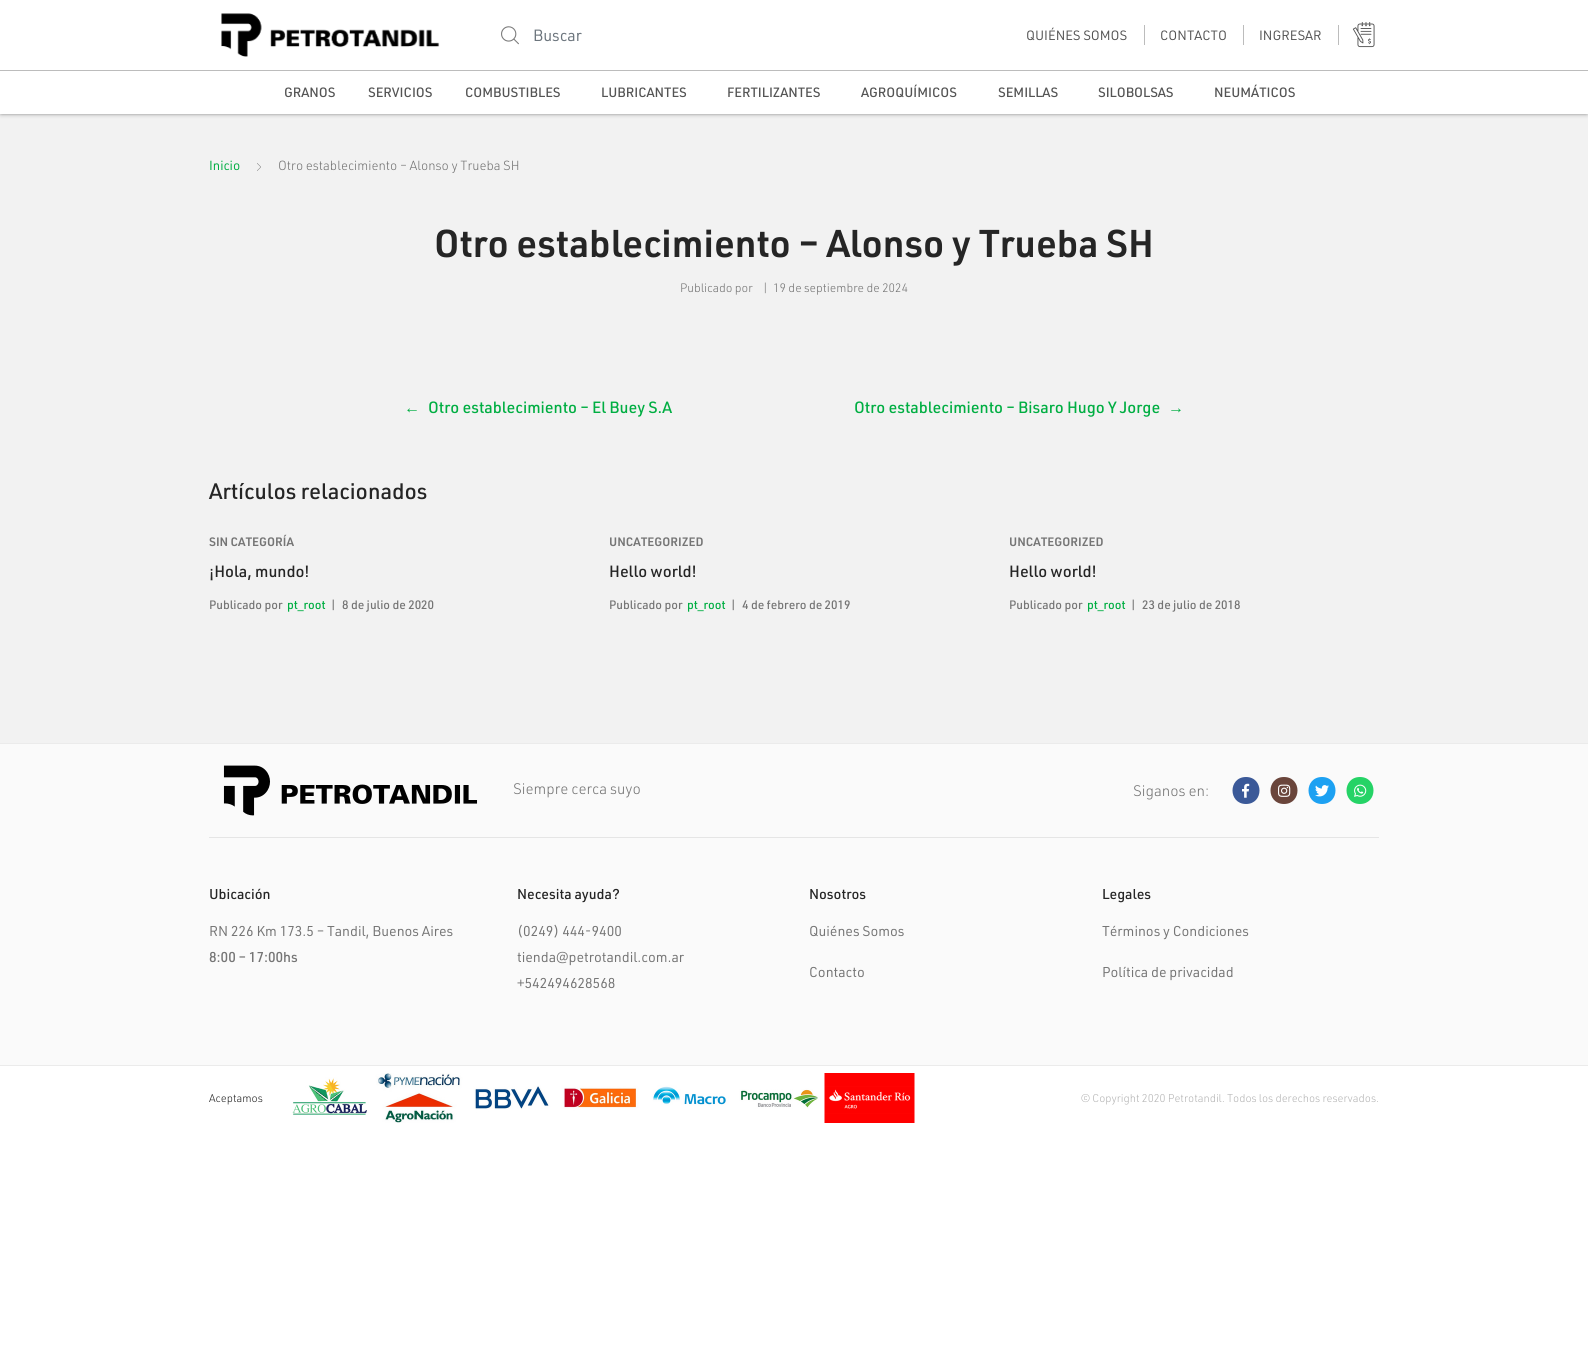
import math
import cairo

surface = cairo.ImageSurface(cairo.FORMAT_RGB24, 1588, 1356)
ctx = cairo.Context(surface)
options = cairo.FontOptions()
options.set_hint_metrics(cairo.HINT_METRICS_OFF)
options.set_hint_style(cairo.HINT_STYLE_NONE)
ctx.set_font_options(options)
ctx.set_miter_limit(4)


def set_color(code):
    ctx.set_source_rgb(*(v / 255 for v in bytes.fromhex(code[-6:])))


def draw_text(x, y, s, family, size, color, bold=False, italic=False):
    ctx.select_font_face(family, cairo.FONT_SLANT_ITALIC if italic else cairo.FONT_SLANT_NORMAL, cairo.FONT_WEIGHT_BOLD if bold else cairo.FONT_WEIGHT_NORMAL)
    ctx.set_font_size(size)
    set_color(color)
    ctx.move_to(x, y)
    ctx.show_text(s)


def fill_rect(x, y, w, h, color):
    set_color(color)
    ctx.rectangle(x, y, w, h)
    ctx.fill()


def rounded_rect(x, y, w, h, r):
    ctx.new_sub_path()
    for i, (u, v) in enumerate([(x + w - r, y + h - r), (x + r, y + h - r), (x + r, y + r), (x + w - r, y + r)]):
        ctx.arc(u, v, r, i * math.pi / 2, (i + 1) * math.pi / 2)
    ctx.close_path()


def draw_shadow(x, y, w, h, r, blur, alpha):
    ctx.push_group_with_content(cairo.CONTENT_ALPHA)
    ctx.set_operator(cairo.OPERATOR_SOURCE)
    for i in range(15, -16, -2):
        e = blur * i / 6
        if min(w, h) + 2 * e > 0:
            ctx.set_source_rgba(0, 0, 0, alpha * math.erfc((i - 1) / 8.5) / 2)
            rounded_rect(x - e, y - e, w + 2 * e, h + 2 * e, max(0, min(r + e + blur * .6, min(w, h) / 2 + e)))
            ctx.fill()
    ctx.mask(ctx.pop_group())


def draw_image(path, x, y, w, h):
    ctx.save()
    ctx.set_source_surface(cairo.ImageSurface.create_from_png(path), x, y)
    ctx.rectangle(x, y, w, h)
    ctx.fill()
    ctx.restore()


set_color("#ffffff")
ctx.paint()
fill_rect(0, 114, 1588, 629, "#f2f2f2")
set_color("#000000")
draw_shadow(1, 1, 1586, 112, 0, 2.5, 0.66)
fill_rect(0, 0, 1588, 70, "#ffffff")
fill_rect(0, 70, 1588, 1, "#bcbcbc")
draw_image("assets/img1.png", 221, 13, 219, 44)
draw_image("assets/img2.png", 501, 26, 18, 19)
draw_text(533, 41, "Buscar", "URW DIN", 16, "#6c757d")
draw_text(1026, 40, "QUIÉNES SOMOS", "URW DIN", 13.25, "#545454")
fill_rect(1144, 25, 1, 20, "#bcbcbc")
draw_text(1160, 40, "CONTACTO", "URW DIN", 13.25, "#545454")
fill_rect(1243, 25, 1, 20, "#bcbcbc")
draw_text(1259, 40, "INGRESAR", "URW DIN", 13.25, "#545454")
fill_rect(1338, 25, 1, 20, "#bcbcbc")
draw_image("assets/img3.png", 1352, 22, 23, 26)
fill_rect(0, 71, 1588, 43, "#ffffff")
draw_text(284, 97, "GRANOS", "URW DIN Medium", 13.25, "#545454")
draw_text(368, 97, "SERVICIOS", "URW DIN Medium", 13.25, "#545454")
draw_text(465, 97, "COMBUSTIBLES", "URW DIN Medium", 13.25, "#545454")
draw_text(601, 97, "LUBRICANTES", "URW DIN Medium", 13.25, "#545454")
draw_text(727, 97, "FERTILIZANTES", "URW DIN Medium", 13.25, "#545454")
draw_text(861, 97, "AGROQUÍMICOS", "URW DIN Medium", 13.25, "#545454")
draw_text(998, 97, "SEMILLAS", "URW DIN Medium", 13.25, "#545454")
draw_text(1098, 97, "SILOBOLSAS", "URW DIN Medium", 13.25, "#545454")
draw_text(1214, 97, "NEUMÁTICOS", "URW DIN Medium", 13.25, "#545454")
draw_text(209, 170, "Inicio", "URW DIN", 13, "#00ae42")
draw_image("assets/img4.png", 257, 163, 4, 8)
draw_text(278, 170, "Otro establecimiento – Alonso y Trueba SH", "URW DIN Light", 13, "#757575")
draw_text(434, 257, "Otro establecimiento – Alonso y Trueba SH", "URW DIN SemiBold", 38, "#252525")
draw_text(680, 292, "Publicado por", "URW DIN Light", 12, "#757575")
draw_text(762, 292, "|", "URW DIN Light", 12, "#757575")
draw_text(773, 292, "19 de septiembre de 2024", "URW DIN Light", 12, "#757575")
draw_text(404, 413, "←", "Liberation Serif", 16, "#00ae42")
draw_text(428, 413, "Otro establecimiento – El Buey S.A", "URW DIN Medium", 16, "#00ae42")
draw_text(854, 413, "Otro establecimiento – Bisaro Hugo Y Jorge", "URW DIN Medium", 16, "#00ae42")
draw_text(1168, 413, "→", "Liberation Serif", 16, "#00ae42")
draw_text(209, 499, "Artículos relacionados", "URW DIN Medium", 22, "#252525")
draw_text(209, 546, "SIN CATEGORÍA", "URW DIN SemiBold", 12, "#757575")
draw_text(209, 577, "¡Hola, mundo!", "URW DIN Medium", 16, "#252525")
draw_text(209, 609, "Publicado por", "URW DIN Medium", 12, "#757575")
draw_text(287, 609, "pt_root", "URW DIN Medium", 12, "#00ae42")
draw_text(330, 609, "|", "URW DIN Medium", 12, "#757575")
draw_text(342, 609, "8 de julio de 2020", "URW DIN Medium", 12, "#757575")
draw_text(609, 546, "UNCATEGORIZED", "URW DIN SemiBold", 12, "#757575")
draw_text(609, 577, "Hello world!", "URW DIN Medium", 16, "#252525")
draw_text(609, 609, "Publicado por", "URW DIN Medium", 12, "#757575")
draw_text(687, 609, "pt_root", "URW DIN Medium", 12, "#00ae42")
draw_text(730, 609, "|", "URW DIN Medium", 12, "#757575")
draw_text(742, 609, "4 de febrero de 2019", "URW DIN Medium", 12, "#757575")
draw_text(1009, 546, "UNCATEGORIZED", "URW DIN SemiBold", 12, "#757575")
draw_text(1009, 577, "Hello world!", "URW DIN Medium", 16, "#252525")
draw_text(1009, 609, "Publicado por", "URW DIN Medium", 12, "#757575")
draw_text(1087, 609, "pt_root", "URW DIN Medium", 12, "#00ae42")
draw_text(1130, 609, "|", "URW DIN Medium", 12, "#757575")
draw_text(1142, 609, "23 de julio de 2018", "URW DIN Medium", 12, "#757575")
fill_rect(0, 744, 1588, 321, "#fafafa")
fill_rect(0, 743, 1588, 1, "#ebebeb")
draw_image("assets/img5.png", 223, 765, 255, 51)
draw_text(513, 794, "Siempre cerca suyo", "URW DIN Light", 15, "#757575")
draw_text(1133, 796, "Siganos en:", "URW DIN Light", 15, "#757575")
set_color("#3b5998")
ctx.new_path()
ctx.move_to(1246, 777)
ctx.curve_to(1228, 777, 1228, 804, 1246, 804)
ctx.curve_to(1264, 804, 1264, 777, 1246, 777)
ctx.close_path()
ctx.fill()
draw_image("assets/img6.png", 1242, 783, 8, 15)
set_color("#6a453b")
ctx.new_path()
ctx.move_to(1284, 777)
ctx.curve_to(1266, 777, 1266, 804, 1284, 804)
ctx.curve_to(1302, 804, 1302, 777, 1284, 777)
ctx.close_path()
ctx.fill()
draw_image("assets/img7.png", 1278, 784, 13, 13)
set_color("#1da1f2")
ctx.new_path()
ctx.move_to(1322, 777)
ctx.curve_to(1304, 777, 1304, 804, 1322, 804)
ctx.curve_to(1340, 804, 1340, 777, 1322, 777)
ctx.close_path()
ctx.fill()
draw_image("assets/img8.png", 1315, 785, 14, 12)
set_color("#25d366")
ctx.new_path()
ctx.move_to(1360, 777)
ctx.curve_to(1342, 777, 1342, 804, 1360, 804)
ctx.curve_to(1378, 804, 1378, 777, 1360, 777)
ctx.close_path()
ctx.fill()
draw_image("assets/img9.png", 1354, 784, 13, 13)
fill_rect(209, 837, 1170, 1, "#e5e5e5")
draw_text(209, 899, "Ubicación", "URW DIN Medium", 14, "#252525")
draw_text(209, 936, "RN 226 Km 173.5 – Tandil, Buenos Aires", "URW DIN", 14, "#757575")
draw_text(209, 962, "8:00 – 17:00hs", "URW DIN Medium", 14, "#757575")
draw_text(517, 899, "Necesita ayuda?", "URW DIN Medium", 14, "#252525")
draw_text(517, 936, "(0249) 444-9400", "URW DIN", 14, "#757575")
draw_text(517, 962, "tienda@petrotandil.com.ar", "URW DIN", 14, "#757575")
draw_text(517, 988, "+542494628568", "URW DIN", 14, "#757575")
draw_text(809, 899, "Nosotros", "URW DIN Medium", 14, "#252525")
draw_text(809, 936, "Quiénes Somos", "URW DIN", 14, "#757575")
draw_text(809, 977, "Contacto", "URW DIN", 14, "#757575")
draw_text(1102, 899, "Legales", "URW DIN Medium", 14, "#252525")
draw_text(1102, 936, "Términos y Condiciones", "URW DIN", 14, "#757575")
draw_text(1102, 977, "Política de privacidad", "URW DIN", 14, "#757575")
fill_rect(0, 1065, 1588, 1, "#ebebeb")
draw_text(209, 1102, "Aceptamos", "URW DIN Light", 11, "#252525")
draw_image("assets/img10.png", 292, 1073, 623, 50)
draw_text(1081, 1102, "© Copyright 2020 Petrotandil. Todos los derechos reservados.", "URW DIN Light", 11, "#b4b4b4")
surface.write_to_png("output.png")
